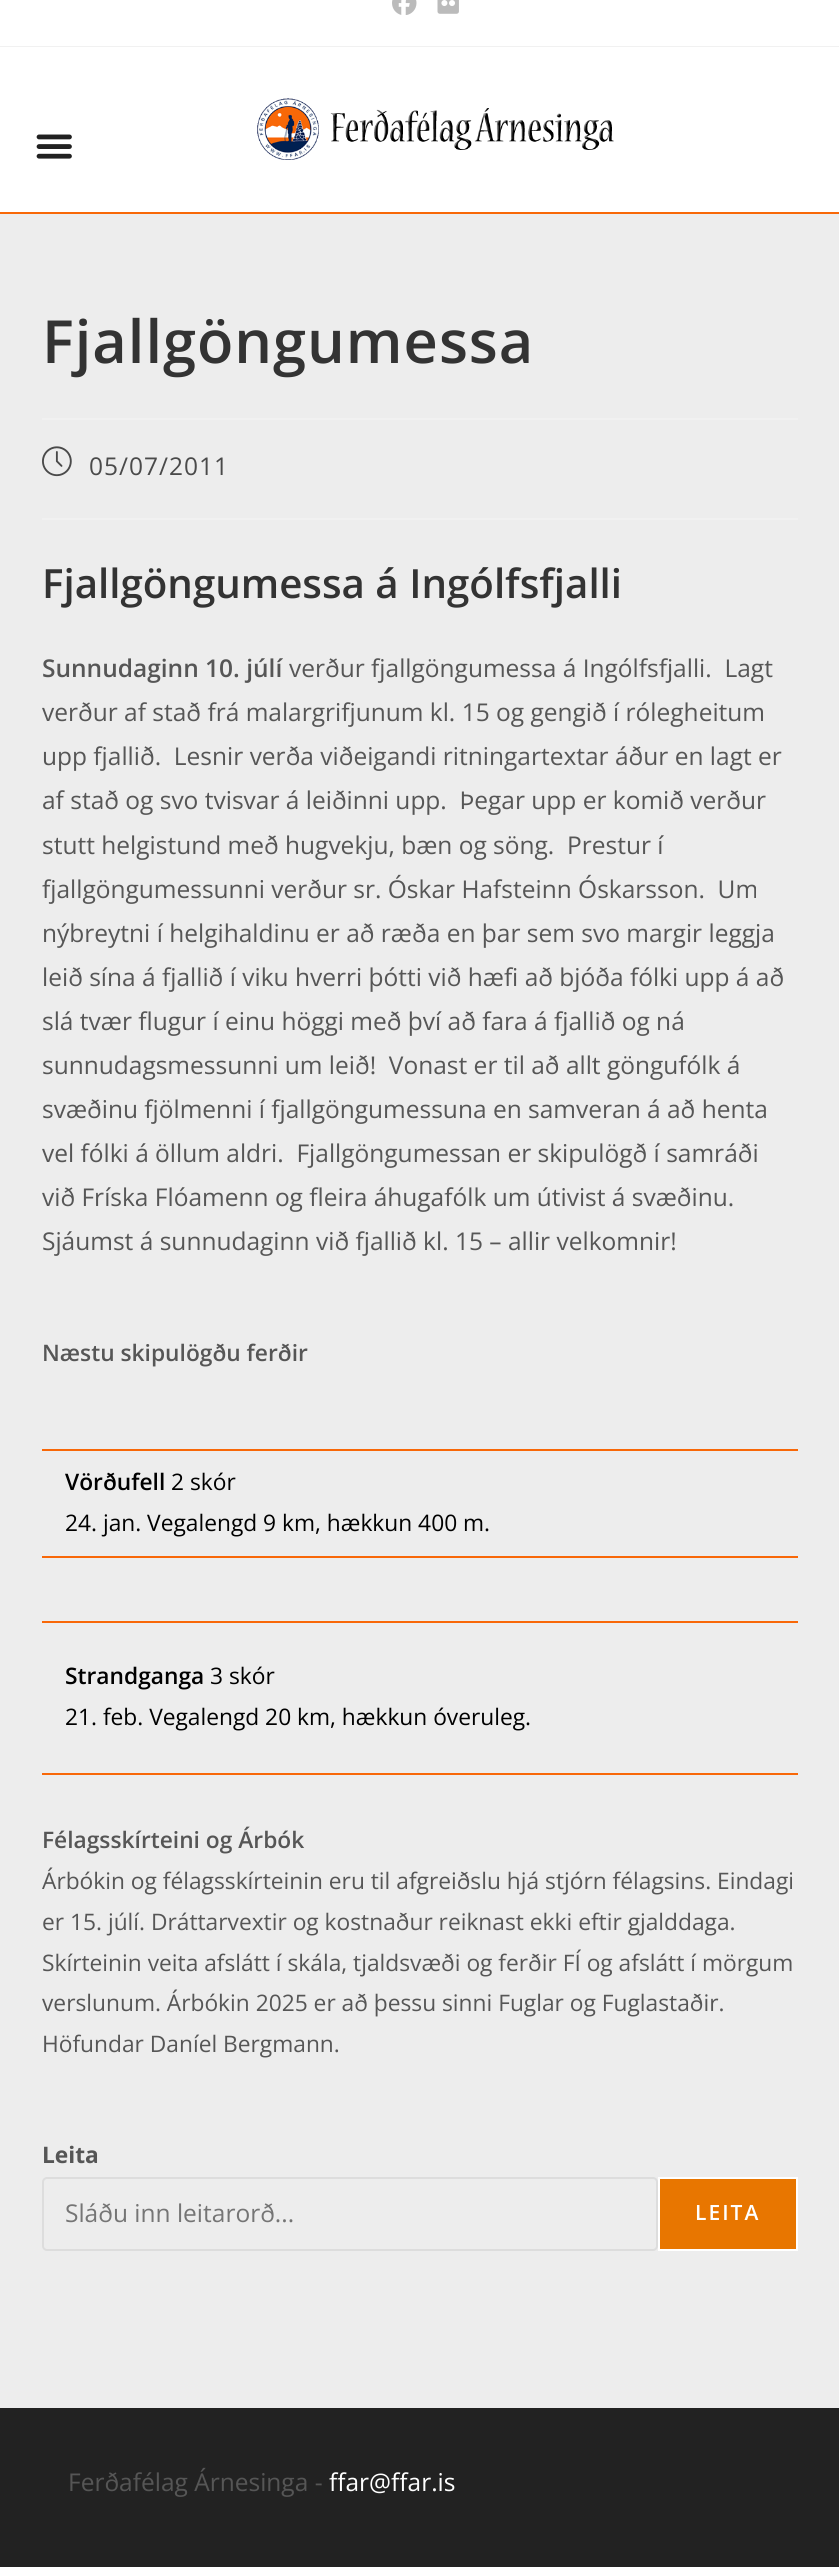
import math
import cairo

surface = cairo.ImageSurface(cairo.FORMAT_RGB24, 839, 2567)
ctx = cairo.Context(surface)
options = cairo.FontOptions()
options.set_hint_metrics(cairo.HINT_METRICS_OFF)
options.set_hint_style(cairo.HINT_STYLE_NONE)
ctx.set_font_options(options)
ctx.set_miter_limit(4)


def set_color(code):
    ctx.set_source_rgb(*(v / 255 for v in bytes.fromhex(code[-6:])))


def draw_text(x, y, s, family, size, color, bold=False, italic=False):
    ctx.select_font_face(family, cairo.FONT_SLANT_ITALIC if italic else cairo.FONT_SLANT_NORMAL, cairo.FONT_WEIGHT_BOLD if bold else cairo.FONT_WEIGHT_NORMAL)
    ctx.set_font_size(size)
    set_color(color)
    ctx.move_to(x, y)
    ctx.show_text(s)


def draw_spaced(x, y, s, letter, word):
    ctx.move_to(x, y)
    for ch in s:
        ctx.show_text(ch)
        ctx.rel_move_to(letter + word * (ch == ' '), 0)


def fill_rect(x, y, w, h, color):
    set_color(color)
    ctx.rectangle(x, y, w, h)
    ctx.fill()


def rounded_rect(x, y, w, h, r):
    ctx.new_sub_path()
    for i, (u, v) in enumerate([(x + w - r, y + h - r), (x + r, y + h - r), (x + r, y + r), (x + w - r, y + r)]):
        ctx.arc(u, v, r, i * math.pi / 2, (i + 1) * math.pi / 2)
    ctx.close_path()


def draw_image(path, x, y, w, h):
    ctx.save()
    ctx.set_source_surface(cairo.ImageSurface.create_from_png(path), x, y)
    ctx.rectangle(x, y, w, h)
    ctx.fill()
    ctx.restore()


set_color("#ededed")
ctx.paint()
fill_rect(0, 0, 839, 46, "#ffffff")
fill_rect(0, 46, 839, 1, "#f1f1f1")
draw_image("assets/img1.png", 392, 0, 25, 15)
draw_image("assets/img2.png", 437, 0, 22, 14)
fill_rect(0, 47, 839, 165, "#ffffff")
fill_rect(0, 212, 839, 2, "#f86808")
draw_image("assets/img3.png", 36, 134, 36, 25)
draw_image("assets/img4.png", 257, 98, 357, 62)
fill_rect(42, 418, 756, 2, "#f1f1f1")
ctx.select_font_face("Open Sans SemiBold")
ctx.set_font_size(59.5)
set_color("#333333")
draw_spaced(42, 363, "Fjallgöngumessa", 1, 0)
fill_rect(42, 518, 756, 2, "#f1f1f1")
draw_image("assets/img5.png", 42, 446, 30, 31)
ctx.select_font_face("Open Sans")
ctx.set_font_size(24.5)
set_color("#4a4a4a")
draw_spaced(89, 475, "05/07/2011", 1, 0)
draw_text(42, 598, "Fjallgöngumessa á Ingólfsfjalli", "Open Sans SemiBold", 40.25, "#333333")
draw_text(42, 677, "Sunnudaginn 10. júlí", "Open Sans SemiBold", 24.5, "#565656")
draw_text(289, 677, "verður fjallgöngumessa á Ingólfsfjalli.  Lagt", "Open Sans", 24.5, "#565656")
draw_text(42, 721, "verður af stað frá malargrifjunum kl. 15 og gengið í rólegheitum", "Open Sans", 24.5, "#565656")
draw_text(42, 765, "upp fjallið.  Lesnir verða viðeigandi ritningartextar áður en lagt er", "Open Sans", 24.5, "#565656")
draw_text(42, 809, "af stað og svo tvisvar á leiðinni upp.  Þegar upp er komið verður", "Open Sans", 24.5, "#565656")
draw_text(42, 854, "stutt helgistund með hugvekju, bæn og söng.  Prestur í", "Open Sans", 24.5, "#565656")
draw_text(42, 898, "fjallgöngumessunni verður sr. Óskar Hafsteinn Óskarsson.  Um", "Open Sans", 24.5, "#565656")
draw_text(42, 942, "nýbreytni í helgihaldinu er að ræða en þar sem svo margir leggja", "Open Sans", 24.5, "#565656")
draw_text(42, 986, "leið sína á fjallið í viku hverri þótti við hæfi að bjóða fólki upp á að", "Open Sans", 24.5, "#565656")
draw_text(42, 1030, "slá tvær flugur í einu höggi með því að fara á fjallið og ná", "Open Sans", 24.5, "#565656")
draw_text(42, 1074, "sunnudagsmessunni um leið!  Vonast er til að allt göngufólk á", "Open Sans", 24.5, "#565656")
draw_text(42, 1118, "svæðinu fjölmenni í fjallgöngumessuna en samveran á að henta", "Open Sans", 24.5, "#565656")
draw_text(42, 1162, "vel fólki á öllum aldri.  Fjallgöngumessan er skipulögð í samráði", "Open Sans", 24.5, "#565656")
draw_text(42, 1206, "við Fríska Flóamenn og fleira áhugafólk um útivist á svæðinu.", "Open Sans", 24.5, "#565656")
draw_text(42, 1250, "Sjáumst á sunnudaginn við fjallið kl. 15 – allir velkomnir!", "Open Sans", 24.5, "#565656")
draw_text(42, 1361, "Næstu skipulögðu ferðir", "Open Sans SemiBold", 22.75, "#565656")
fill_rect(42, 1449, 756, 2, "#f86808")
fill_rect(42, 1556, 756, 2, "#f86808")
draw_text(65, 1490, "Vörðufell", "Open Sans SemiBold", 22.75, "#000000")
draw_text(171, 1490, "2 skór", "Open Sans", 22.75, "#000000")
draw_text(65, 1531, "24. jan. Vegalengd 9 km, hækkun 400 m.", "Open Sans", 22.75, "#000000")
fill_rect(42, 1621, 756, 2, "#f86808")
fill_rect(42, 1773, 756, 2, "#f86808")
draw_text(65, 1684, "Strandganga", "Open Sans SemiBold", 22.75, "#000000")
draw_text(210, 1684, "3 skór", "Open Sans", 22.75, "#000000")
draw_text(65, 1725, "21. feb. Vegalengd 20 km, hækkun óveruleg.", "Open Sans", 22.75, "#000000")
draw_text(42, 1848, "Félagsskírteini og Árbók", "Open Sans SemiBold", 22.75, "#565656")
draw_text(42, 1889, "Árbókin og félagsskírteinin eru til afgreiðslu hjá stjórn félagsins. Eindagi", "Open Sans", 22.75, "#565656")
draw_text(42, 1930, "er 15. júlí. Dráttarvextir og kostnaður reiknast ekki eftir gjalddaga.", "Open Sans", 22.75, "#565656")
draw_text(42, 1971, "Skírteinin veita afslátt í skála, tjaldsvæði og ferðir FÍ og afslátt í mörgum", "Open Sans", 22.75, "#565656")
draw_text(42, 2011, "verslunum. Árbókin 2025 er að þessu sinni Fuglar og Fuglastaðir.", "Open Sans", 22.75, "#565656")
draw_text(42, 2052, "Höfundar Daníel Bergmann.", "Open Sans", 22.75, "#565656")
draw_text(42, 2163, "Leita", "Open Sans", 22.75, "#565656", bold=True)
rounded_rect(43, 2178, 614, 72, 4)
set_color("#dddddd")
ctx.stroke()
draw_text(65, 2222, "Sláðu inn leitarorð...", "Open Sans", 24.5, "#757575")
set_color("#e87600")
ctx.rectangle(659, 2178, 138, 72)
ctx.fill_preserve()
set_color("#ffffff")
ctx.stroke()
ctx.select_font_face("Open Sans SemiBold")
ctx.set_font_size(21)
draw_spaced(695, 2220, "LEITA", 2, 0)
fill_rect(0, 2408, 839, 159, "#222222")
draw_text(68, 2491, "Ferðafélag Árnesinga -", "Open Sans", 24.5, "#565656")
draw_text(329, 2491, "ffar@ffar.is", "Open Sans", 24.5, "#ffffff")
surface.write_to_png("output.png")
